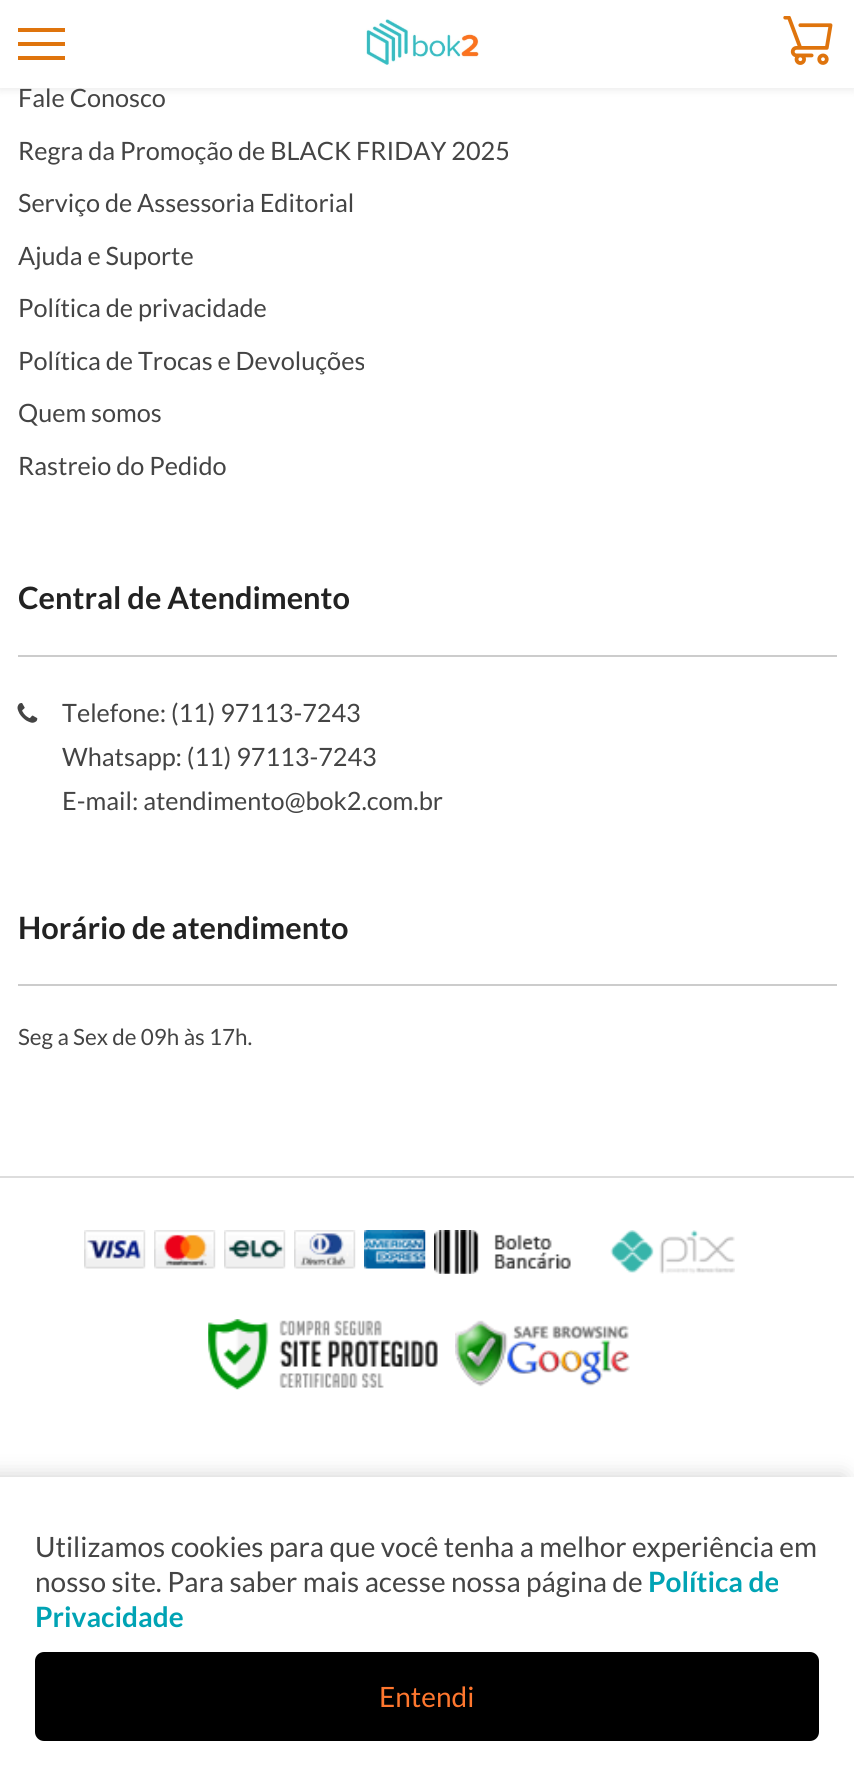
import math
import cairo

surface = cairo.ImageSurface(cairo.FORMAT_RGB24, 854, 1792)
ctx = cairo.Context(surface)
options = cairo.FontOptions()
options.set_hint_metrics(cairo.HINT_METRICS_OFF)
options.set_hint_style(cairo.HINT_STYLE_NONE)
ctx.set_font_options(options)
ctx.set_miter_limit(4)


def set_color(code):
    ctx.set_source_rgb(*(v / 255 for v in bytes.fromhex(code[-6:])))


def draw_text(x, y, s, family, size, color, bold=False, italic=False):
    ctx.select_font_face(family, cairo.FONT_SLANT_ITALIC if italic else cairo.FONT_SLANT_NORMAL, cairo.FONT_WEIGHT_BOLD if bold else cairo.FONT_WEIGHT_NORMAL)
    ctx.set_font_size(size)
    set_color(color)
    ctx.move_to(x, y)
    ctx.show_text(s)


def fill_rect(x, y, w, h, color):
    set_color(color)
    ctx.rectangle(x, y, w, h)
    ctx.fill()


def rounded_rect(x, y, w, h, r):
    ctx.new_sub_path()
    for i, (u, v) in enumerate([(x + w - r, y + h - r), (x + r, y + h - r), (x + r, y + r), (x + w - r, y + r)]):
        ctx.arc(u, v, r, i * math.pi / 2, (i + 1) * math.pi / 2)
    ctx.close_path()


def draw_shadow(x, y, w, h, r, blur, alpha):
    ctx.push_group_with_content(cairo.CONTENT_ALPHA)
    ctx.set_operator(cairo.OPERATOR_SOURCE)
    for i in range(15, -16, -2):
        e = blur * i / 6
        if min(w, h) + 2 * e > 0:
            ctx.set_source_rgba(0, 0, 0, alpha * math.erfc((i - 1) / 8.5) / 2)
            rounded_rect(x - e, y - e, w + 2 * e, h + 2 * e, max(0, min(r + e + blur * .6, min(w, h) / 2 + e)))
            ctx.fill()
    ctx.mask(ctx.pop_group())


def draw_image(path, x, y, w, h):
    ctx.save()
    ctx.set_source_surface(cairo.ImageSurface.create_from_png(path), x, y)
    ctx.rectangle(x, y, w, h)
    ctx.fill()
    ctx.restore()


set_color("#ffffff")
ctx.paint()
set_color("#000000")
draw_shadow(0, 2, 854, 87, 0, 4.5, 0.1)
fill_rect(0, 0, 854, 88, "#ffffff")
fill_rect(18, 28, 47, 4, "#df740d")
fill_rect(18, 42, 47, 4, "#df740d")
fill_rect(18, 56, 47, 4, "#df740d")
draw_image("assets/img1.png", 366, 19, 113, 46)
draw_image("assets/img2.png", 783, 16, 50, 49)
draw_text(18, 107, "Fale Conosco", "Lato", 25.25, "#444444")
draw_text(18, 160, "Regra da Promoção de BLACK FRIDAY 2025", "Lato", 25.25, "#444444")
draw_text(18, 212, "Serviço de Assessoria Editorial", "Lato", 25.25, "#444444")
draw_text(18, 265, "Ajuda e Suporte", "Lato", 25.25, "#444444")
draw_text(18, 317, "Política de privacidade", "Lato", 25.25, "#444444")
draw_text(18, 370, "Política de Trocas e Devoluções", "Lato", 25.25, "#444444")
draw_text(18, 422, "Quem somos", "Lato", 25.25, "#444444")
draw_text(18, 475, "Rastreio do Pedido", "Lato", 25.25, "#444444")
fill_rect(18, 655, 819, 2, "#cccccc")
draw_text(18, 609, "Central de Atendimento", "Lato", 30.75, "#222222", bold=True)
draw_image("assets/img3.png", 17, 703, 21, 20)
draw_text(62, 722, "Telefone: (11) 97113-7243", "Lato", 25.25, "#444444")
draw_text(62, 766, "Whatsapp: (11) 97113-7243", "Lato", 25.25, "#444444")
draw_text(62, 810, "E-mail: atendimento@bok2.com.br", "Lato", 25.25, "#444444")
fill_rect(18, 984, 819, 2, "#cccccc")
draw_text(18, 939, "Horário de atendimento", "Lato", 30.75, "#222222", bold=True)
draw_text(18, 1045, "Seg a Sex de 09h às 17h.", "Lato", 22.4, "#444444")
fill_rect(0, 1176, 854, 2, "#dddddd")
draw_image("assets/img4.png", 84, 1230, 62, 39)
draw_image("assets/img5.png", 154, 1230, 62, 39)
draw_image("assets/img6.png", 224, 1230, 62, 39)
draw_image("assets/img7.png", 294, 1230, 62, 39)
draw_image("assets/img8.png", 364, 1230, 62, 39)
draw_image("assets/img9.png", 434, 1230, 137, 44)
draw_image("assets/img10.png", 610, 1230, 125, 44)
draw_image("assets/img11.png", 208, 1319, 230, 71)
draw_image("assets/img12.png", 455, 1320, 175, 67)
set_color("#000000")
draw_shadow(-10, 1477, 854, 315, 0, 10.5, 0.2)
fill_rect(0, 1477, 854, 315, "#ffffff")
draw_text(35, 1557, "Utilizamos cookies para que você tenha a melhor experiência em", "Lato", 28, "#444444")
draw_text(35, 1592, "nosso site. Para saber mais acesse nossa página de", "Lato", 28, "#444444")
draw_text(648, 1592, "Política de", "Lato", 28, "#00a3b4", bold=True)
draw_text(35, 1627, "Privacidade", "Lato", 28, "#00a3b4", bold=True)
set_color("#000000")
rounded_rect(35, 1652, 784, 89, 9)
ctx.fill()
draw_text(379, 1707, "Entendi", "Lato", 28, "#ff772e")
surface.write_to_png("output.png")
